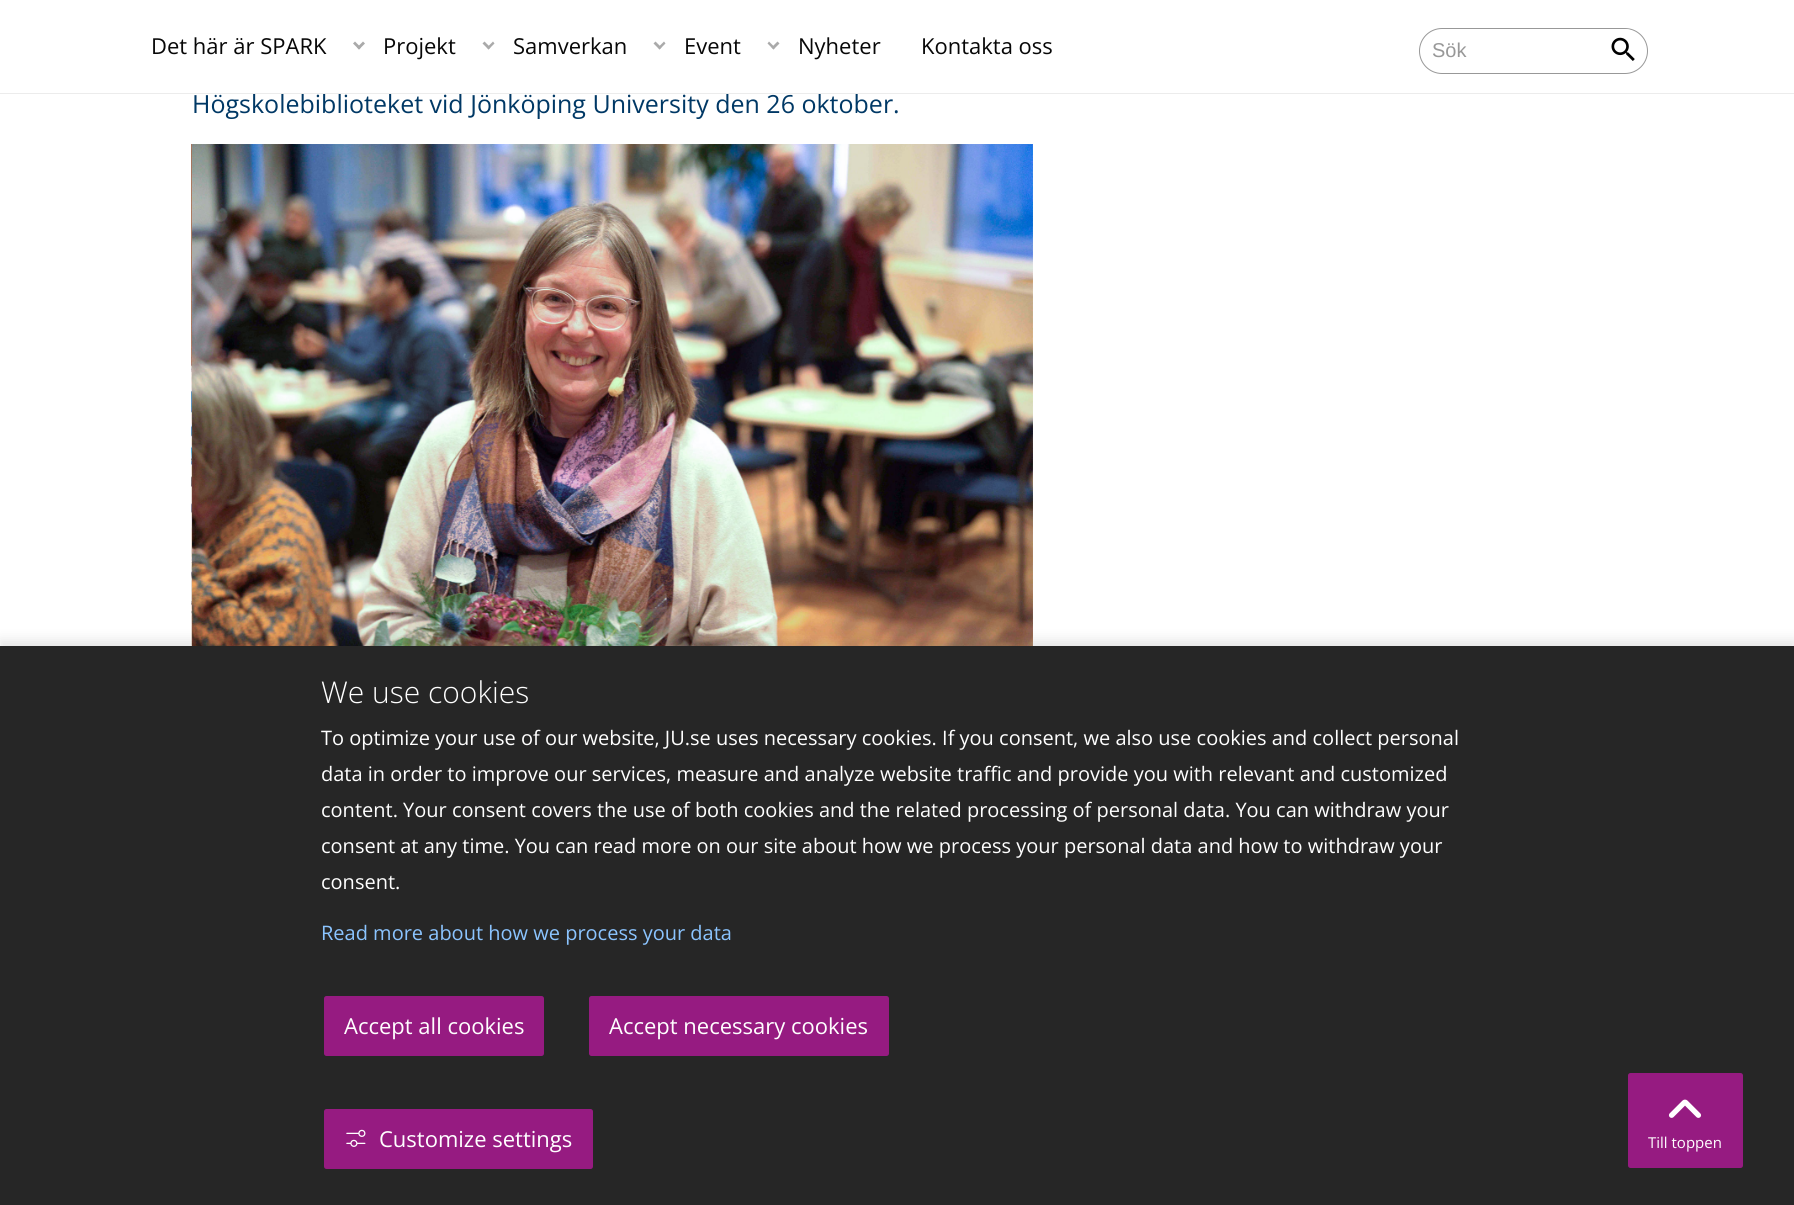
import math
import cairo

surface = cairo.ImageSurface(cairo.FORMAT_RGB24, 1794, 1205)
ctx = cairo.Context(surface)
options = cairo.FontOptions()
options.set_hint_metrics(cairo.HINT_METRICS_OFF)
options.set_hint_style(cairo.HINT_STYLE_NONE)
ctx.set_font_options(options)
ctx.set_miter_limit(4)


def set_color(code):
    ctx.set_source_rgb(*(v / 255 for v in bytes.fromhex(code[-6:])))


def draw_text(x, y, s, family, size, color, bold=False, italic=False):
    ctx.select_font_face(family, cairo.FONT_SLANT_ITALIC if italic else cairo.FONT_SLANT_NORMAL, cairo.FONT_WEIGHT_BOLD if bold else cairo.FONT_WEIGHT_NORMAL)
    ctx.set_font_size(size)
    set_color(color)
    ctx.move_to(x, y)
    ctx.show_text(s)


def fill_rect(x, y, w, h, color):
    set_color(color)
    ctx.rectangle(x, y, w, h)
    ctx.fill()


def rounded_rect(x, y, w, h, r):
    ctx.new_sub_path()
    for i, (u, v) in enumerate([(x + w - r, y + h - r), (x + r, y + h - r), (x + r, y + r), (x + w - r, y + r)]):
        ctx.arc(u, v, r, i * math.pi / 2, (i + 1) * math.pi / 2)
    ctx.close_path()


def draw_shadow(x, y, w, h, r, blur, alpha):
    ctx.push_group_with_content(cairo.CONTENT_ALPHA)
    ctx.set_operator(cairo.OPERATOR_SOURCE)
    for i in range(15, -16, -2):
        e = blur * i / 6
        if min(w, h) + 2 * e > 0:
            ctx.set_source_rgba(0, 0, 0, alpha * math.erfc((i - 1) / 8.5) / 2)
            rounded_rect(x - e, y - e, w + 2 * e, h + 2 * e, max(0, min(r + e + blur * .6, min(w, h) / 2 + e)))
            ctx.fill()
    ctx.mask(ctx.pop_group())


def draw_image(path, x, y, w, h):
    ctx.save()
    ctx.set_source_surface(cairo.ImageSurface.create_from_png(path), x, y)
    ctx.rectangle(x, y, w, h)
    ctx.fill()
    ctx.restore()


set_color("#ffffff")
ctx.paint()
fill_rect(0, 93, 1794, 1, "#ececec")
draw_text(151, 54, "Det här är SPARK", "Open Sans", 22, "#070707")
set_color("#aaaaaa")
ctx.new_path()
ctx.move_to(357, 47.5)
ctx.line_to(363, 41.5)
ctx.line_to(365, 43.5)
ctx.line_to(359, 49.5)
ctx.close_path()
ctx.fill()
ctx.new_path()
ctx.move_to(353, 43.5)
ctx.line_to(355, 41.5)
ctx.line_to(361, 47.5)
ctx.line_to(359, 49.5)
ctx.close_path()
ctx.fill()
draw_text(383, 54, "Projekt", "Open Sans", 22, "#070707")
set_color("#aaaaaa")
ctx.new_path()
ctx.move_to(487, 47.5)
ctx.line_to(493, 41.5)
ctx.line_to(494.5, 43.5)
ctx.line_to(488.5, 49.5)
ctx.close_path()
ctx.fill()
ctx.new_path()
ctx.move_to(482.5, 43.5)
ctx.line_to(484.5, 41.5)
ctx.line_to(490.5, 47.5)
ctx.line_to(488.5, 49.5)
ctx.close_path()
ctx.fill()
draw_text(513, 54, "Samverkan", "Open Sans", 22, "#070707")
set_color("#aaaaaa")
ctx.new_path()
ctx.move_to(658, 47.5)
ctx.line_to(664, 41.5)
ctx.line_to(665.5, 43.5)
ctx.line_to(659.5, 49.5)
ctx.close_path()
ctx.fill()
ctx.new_path()
ctx.move_to(653.5, 43.5)
ctx.line_to(655.5, 41.5)
ctx.line_to(661.5, 47.5)
ctx.line_to(659.5, 49.5)
ctx.close_path()
ctx.fill()
draw_text(684, 54, "Event", "Open Sans", 22, "#070707")
set_color("#aaaaaa")
ctx.new_path()
ctx.move_to(771.5, 47.5)
ctx.line_to(777.5, 41.5)
ctx.line_to(779.5, 43.5)
ctx.line_to(773.5, 49.5)
ctx.close_path()
ctx.fill()
ctx.new_path()
ctx.move_to(767.5, 43.5)
ctx.line_to(769, 41.5)
ctx.line_to(775, 47.5)
ctx.line_to(773.5, 49.5)
ctx.close_path()
ctx.fill()
draw_text(798, 54, "Nyheter", "Open Sans", 22, "#070707")
draw_text(921, 54, "Kontakta oss", "Open Sans", 22, "#070707")
rounded_rect(1419.5, 28.5, 228, 45, 22.5)
set_color("#989898")
ctx.set_line_width(1)
ctx.stroke()
draw_text(1432, 57, "Sök", "Liberation Sans", 20, "#989898")
set_color("#ffffff")
ctx.new_path()
ctx.arc(1624, 49, 20, 0, 2 * math.pi)
ctx.fill()
draw_image("assets/img1.png", 1611, 37, 24, 24)
draw_text(192, 113, "Högskolebiblioteket vid Jönköping University den 26 oktober.", "Open Sans", 25, "#003865")
draw_image("assets/img2.png", 191, 144, 1, 502)
draw_image("assets/img3.png", 192, 144, 841, 502)
set_color("#000000")
draw_shadow(0, 640, 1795, 559, 0, 6, 0.1)
fill_rect(0, 646, 1794, 559, "#262626")
set_color("#961b81")
rounded_rect(1628, 1073, 115, 95, 2.5)
ctx.fill()
draw_image("assets/img4.png", 1668, 1099, 34, 19)
draw_text(1648, 1148, "Till toppen", "Open Sans", 15, "#ffffff")
draw_text(321, 703, "We use cookies", "Open Sans Light", 30, "#ffffff")
draw_text(321, 745, "To optimize your use of our website, JU.se uses necessary cookies. If you consent, we also use cookies and collect personal", "Open Sans", 20, "#ffffff")
draw_text(321, 781, "data in order to improve our services, measure and analyze website traffic and provide you with relevant and customized", "Open Sans", 20, "#ffffff")
draw_text(321, 817, "content. Your consent covers the use of both cookies and the related processing of personal data. You can withdraw your", "Open Sans", 20, "#ffffff")
draw_text(321, 853, "consent at any time. You can read more on our site about how we process your personal data and how to withdraw your", "Open Sans", 20, "#ffffff")
draw_text(321, 889, "consent.", "Open Sans", 20, "#ffffff")
draw_text(321, 940, "Read more about how we process your data", "Open Sans", 20, "#8bc4ff")
set_color("#961b81")
rounded_rect(324, 996, 220, 60, 2.5)
ctx.fill()
draw_text(344, 1034, "Accept all cookies", "Open Sans", 22, "#ffffff")
set_color("#961b81")
rounded_rect(589, 996, 300, 60, 2.5)
ctx.fill()
draw_text(609, 1034, "Accept necessary cookies", "Open Sans", 22, "#ffffff")
set_color("#961b81")
rounded_rect(324, 1109, 269, 60, 2.5)
ctx.fill()
draw_image("assets/img5.png", 346, 1129, 20, 18)
draw_text(379, 1147, "Customize settings", "Open Sans", 22, "#ffffff")
surface.write_to_png("output.png")
